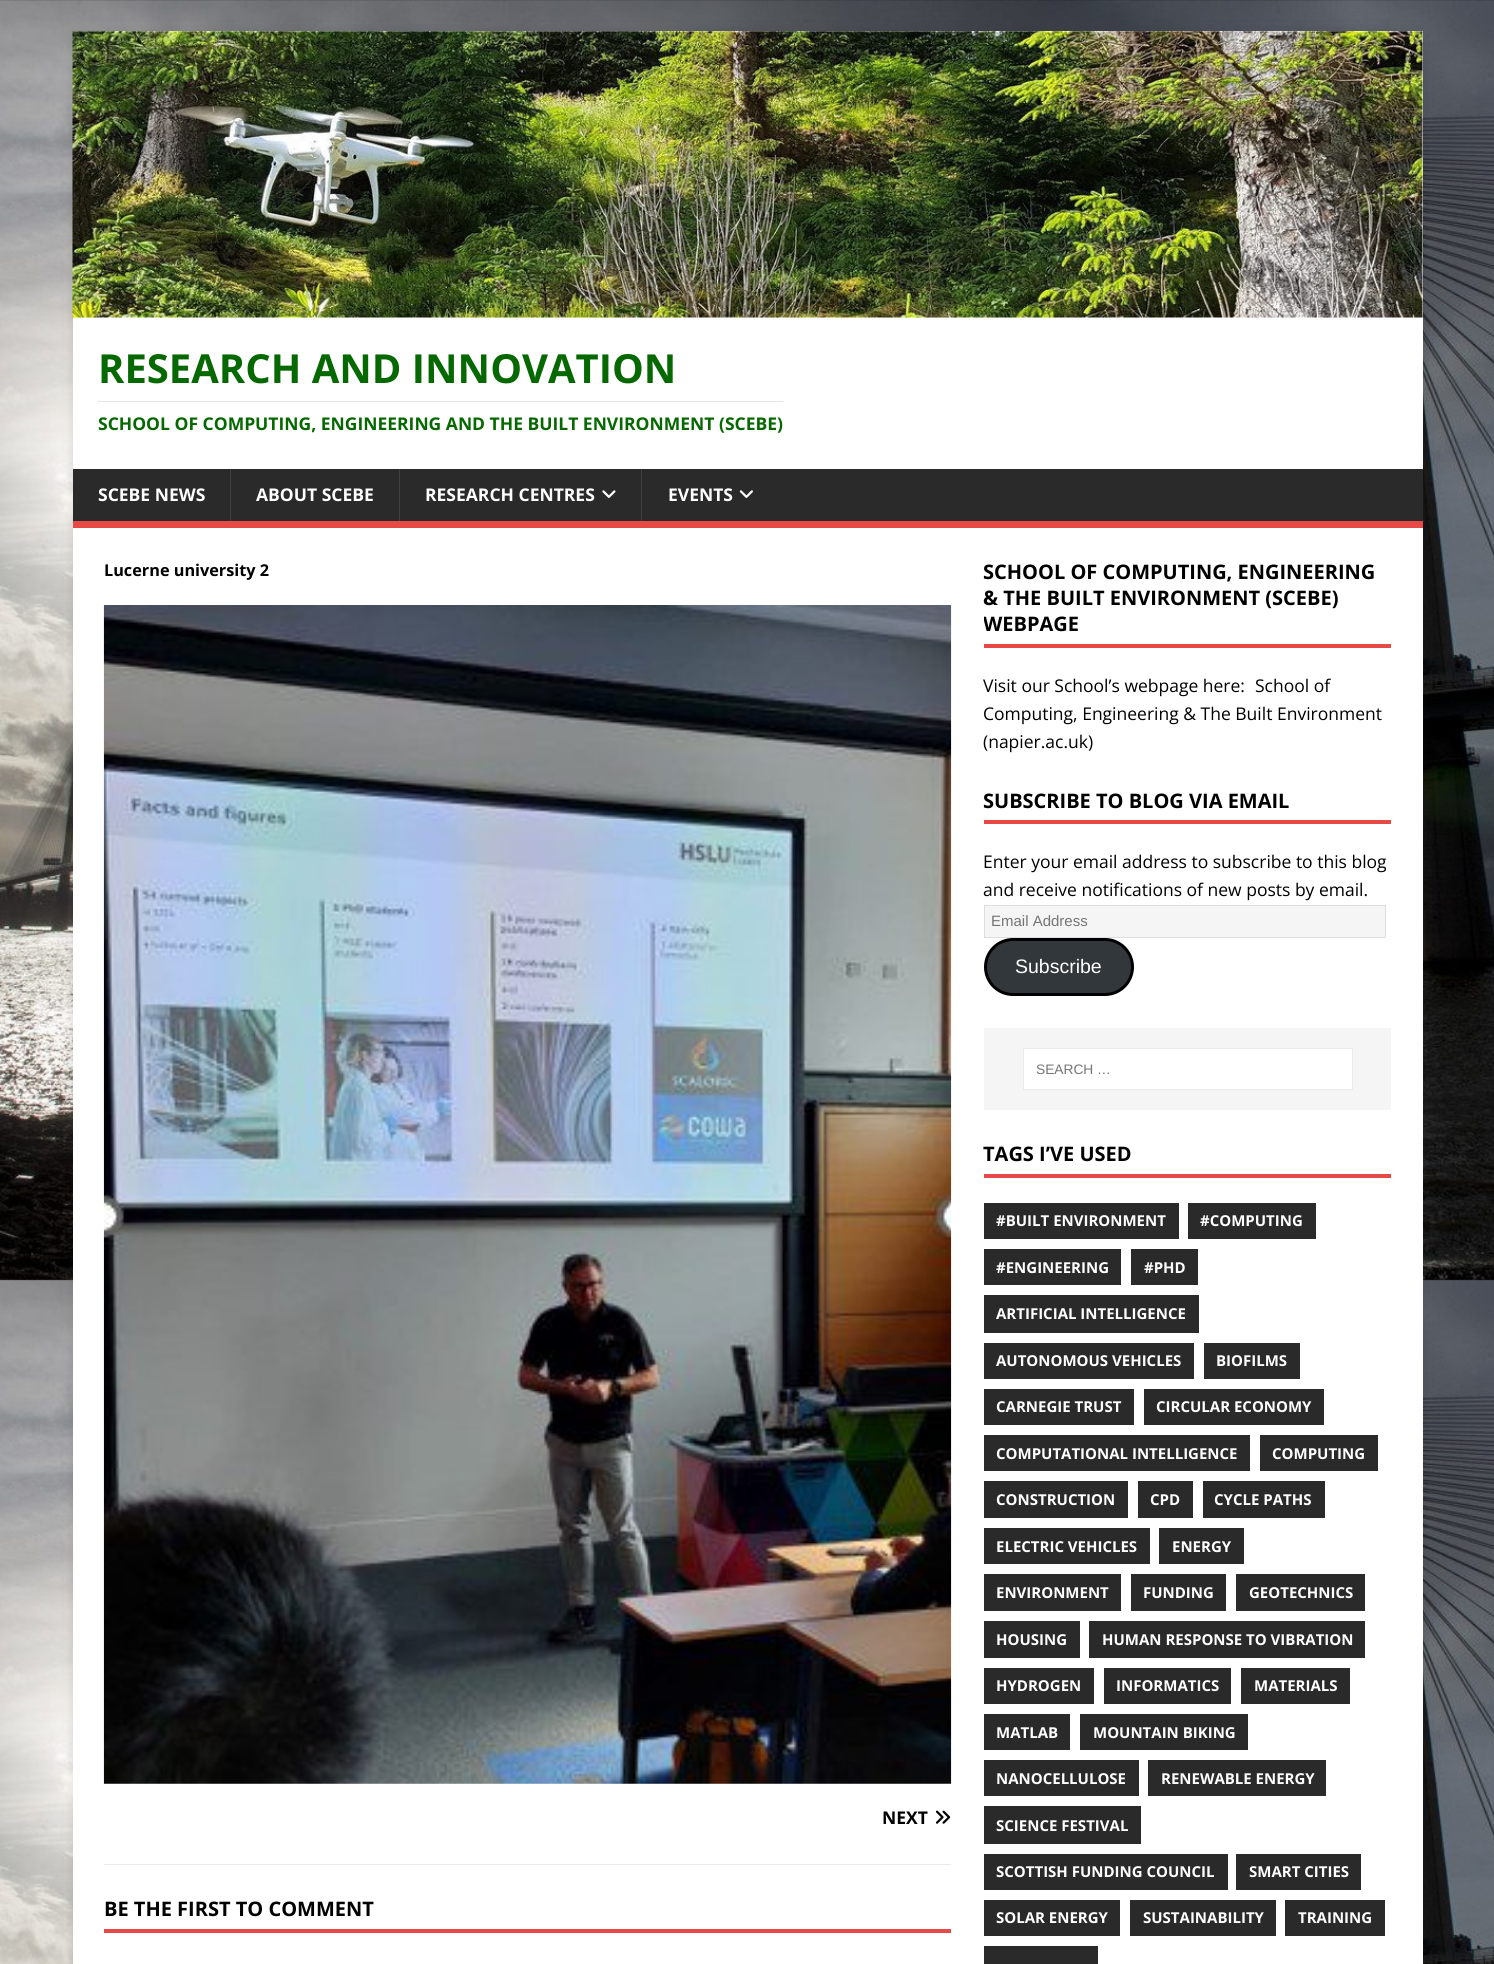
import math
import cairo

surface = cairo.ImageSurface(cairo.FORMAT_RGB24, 1494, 1964)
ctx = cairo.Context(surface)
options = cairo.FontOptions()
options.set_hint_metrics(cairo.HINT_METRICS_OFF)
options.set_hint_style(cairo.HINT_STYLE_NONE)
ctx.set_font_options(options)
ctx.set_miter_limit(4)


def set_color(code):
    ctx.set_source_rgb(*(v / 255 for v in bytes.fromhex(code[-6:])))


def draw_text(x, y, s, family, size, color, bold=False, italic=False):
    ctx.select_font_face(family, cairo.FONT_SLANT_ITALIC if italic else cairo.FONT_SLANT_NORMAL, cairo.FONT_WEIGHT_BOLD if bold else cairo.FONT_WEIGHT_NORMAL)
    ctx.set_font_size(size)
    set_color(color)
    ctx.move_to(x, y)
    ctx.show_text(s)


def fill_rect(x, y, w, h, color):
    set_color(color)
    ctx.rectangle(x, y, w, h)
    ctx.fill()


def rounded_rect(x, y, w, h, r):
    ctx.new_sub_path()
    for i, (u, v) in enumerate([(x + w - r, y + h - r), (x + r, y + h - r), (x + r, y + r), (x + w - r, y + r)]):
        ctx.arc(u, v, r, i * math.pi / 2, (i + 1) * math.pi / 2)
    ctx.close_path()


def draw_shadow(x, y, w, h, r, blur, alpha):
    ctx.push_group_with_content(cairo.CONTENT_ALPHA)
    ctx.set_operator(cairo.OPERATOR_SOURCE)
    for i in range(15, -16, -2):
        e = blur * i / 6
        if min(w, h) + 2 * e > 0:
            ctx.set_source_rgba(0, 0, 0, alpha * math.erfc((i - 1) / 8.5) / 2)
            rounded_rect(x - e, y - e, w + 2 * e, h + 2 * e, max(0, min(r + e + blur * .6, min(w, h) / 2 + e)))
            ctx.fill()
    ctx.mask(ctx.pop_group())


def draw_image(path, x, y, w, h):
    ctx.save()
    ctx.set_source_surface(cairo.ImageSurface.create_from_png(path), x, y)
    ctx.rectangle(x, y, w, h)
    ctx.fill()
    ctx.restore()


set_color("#ffffff")
ctx.paint()
draw_image("assets/img1.png", 0, 0, 1494, 1964)
set_color("#323232")
draw_shadow(73, 31, 1350, 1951, 0, 6, 0.17)
fill_rect(73, 31, 1350, 438, "#ffffff")
draw_image("assets/img2.png", 72, 31, 1351, 287)
draw_text(98, 383, "RESEARCH AND INNOVATION", "Open Sans", 40, "#056800", bold=True)
fill_rect(98, 401, 685, 1, "#e5e5e5")
draw_text(98, 430, "SCHOOL OF COMPUTING, ENGINEERING AND THE BUILT ENVIRONMENT (SCEBE)", "Open Sans", 17.5, "#056800", bold=True)
fill_rect(73, 469, 1350, 52, "#2a2a2a")
fill_rect(73, 521, 1350, 7, "#e64946")
draw_text(98, 501, "SCEBE NEWS", "Open Sans", 17.5, "#ffffff", bold=True)
fill_rect(230, 469, 1, 52, "#3f3f3f")
draw_text(256, 501, "ABOUT SCEBE", "Open Sans", 17.5, "#ffffff", bold=True)
fill_rect(399, 469, 1, 52, "#3f3f3f")
draw_text(425, 501, "RESEARCH CENTRES", "Open Sans", 17.5, "#ffffff", bold=True)
draw_image("assets/img3.png", 602, 490, 14, 8)
fill_rect(641, 469, 1, 52, "#3f3f3f")
draw_text(668, 501, "EVENTS", "Open Sans", 17.5, "#ffffff", bold=True)
draw_image("assets/img4.png", 739, 490, 14, 8)
fill_rect(73, 528, 1350, 1436, "#ffffff")
draw_text(104, 576, "Lucerne university 2", "Open Sans", 16.25, "#000000", bold=True)
draw_image("assets/img5.png", 103, 605, 849, 1179)
fill_rect(104, 1864, 847, 1, "#ebebeb")
draw_text(882, 1824, "NEXT", "Open Sans", 17.5, "#000000", bold=True)
draw_image("assets/img6.png", 935, 1810, 16, 14)
fill_rect(104, 1929, 847, 4, "#e64946")
draw_text(104, 1916, "BE THE FIRST TO COMMENT", "Open Sans", 20, "#000000", bold=True)
fill_rect(984, 644, 407, 4, "#e64946")
draw_text(983, 579, "SCHOOL OF COMPUTING, ENGINEERING", "Open Sans", 20, "#000000", bold=True)
draw_text(983, 605, "& THE BUILT ENVIRONMENT (SCEBE)", "Open Sans", 20, "#000000", bold=True)
ctx.save()
ctx.rectangle(984, 559, 407, 197)
ctx.clip()
draw_text(983, 631, "WEBPAGE", "Open Sans", 20, "#000000", bold=True)
ctx.restore()
draw_text(983, 692, "Visit our School’s webpage here:", "Open Sans", 17.5, "#000000")
draw_text(1255, 692, "School of", "Open Sans", 17.5, "#000000")
draw_text(983, 720, "Computing, Engineering & The Built Environment", "Open Sans", 17.5, "#000000")
draw_text(983, 748, "(napier.ac.uk)", "Open Sans", 17.5, "#000000")
fill_rect(984, 820, 407, 4, "#e64946")
draw_text(983, 808, "SUBSCRIBE TO BLOG VIA EMAIL", "Open Sans", 20, "#000000", bold=True)
draw_text(983, 868, "Enter your email address to subscribe to this blog", "Open Sans", 17.5, "#000000")
draw_text(983, 896, "and receive notifications of new posts by email.", "Open Sans", 17.5, "#000000")
set_color("#f5f5f5")
ctx.rectangle(984.5, 905.5, 401, 32)
ctx.fill_preserve()
set_color("#dddddd")
ctx.set_line_width(1)
ctx.stroke()
draw_text(991, 926, "Email Address", "Liberation Sans", 15, "#757575")
set_color("#32373c")
rounded_rect(985.5, 939.5, 147, 55, 27.5)
ctx.fill_preserve()
set_color("#000000")
ctx.set_line_width(3)
ctx.stroke()
draw_text(1015, 973, "Subscribe", "Liberation Sans", 19.5, "#ffffff")
fill_rect(984, 1028, 407, 82, "#f5f5f5")
set_color("#ffffff")
ctx.rectangle(1023.5, 1048.5, 329, 41)
ctx.fill_preserve()
set_color("#ebebeb")
ctx.set_line_width(1)
ctx.stroke()
draw_text(1036, 1074, "SEARCH …", "Liberation Sans", 13.75, "#757575")
fill_rect(984, 1174, 407, 4, "#e64946")
draw_text(983, 1161, "TAGS I’VE USED", "Open Sans", 20, "#000000", bold=True)
fill_rect(984, 1203, 195, 36, "#2a2a2a")
draw_text(996, 1226, "#BUILT ENVIRONMENT", "Open Sans", 15, "#ffffff", bold=True)
fill_rect(1188, 1203, 128, 36, "#2a2a2a")
draw_text(1200, 1226, "#COMPUTING", "Open Sans", 15, "#ffffff", bold=True)
fill_rect(984, 1249, 137, 36, "#2a2a2a")
draw_text(996, 1273, "#ENGINEERING", "Open Sans", 15, "#ffffff", bold=True)
fill_rect(1131, 1249, 67, 36, "#2a2a2a")
draw_text(1144, 1273, "#PHD", "Open Sans", 15, "#ffffff", bold=True)
fill_rect(984, 1295, 215, 38, "#2a2a2a")
draw_text(996, 1319, "ARTIFICIAL INTELLIGENCE", "Open Sans", 15, "#ffffff", bold=True)
fill_rect(984, 1343, 210, 36, "#2a2a2a")
draw_text(996, 1366, "AUTONOMOUS VEHICLES", "Open Sans", 15, "#ffffff", bold=True)
fill_rect(1204, 1343, 96, 36, "#2a2a2a")
draw_text(1216, 1366, "BIOFILMS", "Open Sans", 15, "#ffffff", bold=True)
fill_rect(984, 1389, 150, 36, "#2a2a2a")
draw_text(996, 1412, "CARNEGIE TRUST", "Open Sans", 15, "#ffffff", bold=True)
fill_rect(1144, 1389, 180, 36, "#2a2a2a")
draw_text(1156, 1412, "CIRCULAR ECONOMY", "Open Sans", 15, "#ffffff", bold=True)
fill_rect(984, 1435, 266, 36, "#2a2a2a")
draw_text(996, 1459, "COMPUTATIONAL INTELLIGENCE", "Open Sans", 15, "#ffffff", bold=True)
fill_rect(1260, 1435, 118, 36, "#2a2a2a")
draw_text(1272, 1459, "COMPUTING", "Open Sans", 15, "#ffffff", bold=True)
fill_rect(984, 1481, 144, 37, "#2a2a2a")
draw_text(996, 1505, "CONSTRUCTION", "Open Sans", 15, "#ffffff", bold=True)
fill_rect(1138, 1481, 55, 37, "#2a2a2a")
draw_text(1150, 1505, "CPD", "Open Sans", 15, "#ffffff", bold=True)
fill_rect(1203, 1481, 122, 37, "#2a2a2a")
draw_text(1214, 1505, "CYCLE PATHS", "Open Sans", 15, "#ffffff", bold=True)
fill_rect(984, 1528, 166, 36, "#2a2a2a")
draw_text(996, 1552, "ELECTRIC VEHICLES", "Open Sans", 15, "#ffffff", bold=True)
fill_rect(1159, 1528, 85, 36, "#2a2a2a")
draw_text(1172, 1552, "ENERGY", "Open Sans", 15, "#ffffff", bold=True)
fill_rect(984, 1574, 137, 37, "#2a2a2a")
draw_text(996, 1598, "ENVIRONMENT", "Open Sans", 15, "#ffffff", bold=True)
fill_rect(1131, 1574, 95, 37, "#2a2a2a")
draw_text(1143, 1598, "FUNDING", "Open Sans", 15, "#ffffff", bold=True)
fill_rect(1236, 1574, 129, 37, "#2a2a2a")
draw_text(1249, 1598, "GEOTECHNICS", "Open Sans", 15, "#ffffff", bold=True)
fill_rect(984, 1621, 96, 37, "#2a2a2a")
draw_text(996, 1645, "HOUSING", "Open Sans", 15, "#ffffff", bold=True)
fill_rect(1089, 1621, 276, 37, "#2a2a2a")
draw_text(1102, 1645, "HUMAN RESPONSE TO VIBRATION", "Open Sans", 15, "#ffffff", bold=True)
fill_rect(984, 1668, 110, 36, "#2a2a2a")
draw_text(996, 1691, "HYDROGEN", "Open Sans", 15, "#ffffff", bold=True)
fill_rect(1104, 1668, 127, 36, "#2a2a2a")
draw_text(1116, 1691, "INFORMATICS", "Open Sans", 15, "#ffffff", bold=True)
fill_rect(1241, 1668, 109, 36, "#2a2a2a")
draw_text(1254, 1691, "MATERIALS", "Open Sans", 15, "#ffffff", bold=True)
fill_rect(984, 1714, 86, 36, "#2a2a2a")
draw_text(996, 1738, "MATLAB", "Open Sans", 15, "#ffffff", bold=True)
fill_rect(1080, 1714, 168, 36, "#2a2a2a")
draw_text(1093, 1738, "MOUNTAIN BIKING", "Open Sans", 15, "#ffffff", bold=True)
fill_rect(984, 1760, 155, 36, "#2a2a2a")
draw_text(996, 1784, "NANOCELLULOSE", "Open Sans", 15, "#ffffff", bold=True)
fill_rect(1148, 1760, 178, 36, "#2a2a2a")
draw_text(1161, 1784, "RENEWABLE ENERGY", "Open Sans", 15, "#ffffff", bold=True)
fill_rect(984, 1806, 157, 38, "#2a2a2a")
draw_text(996, 1831, "SCIENCE FESTIVAL", "Open Sans", 15, "#ffffff", bold=True)
fill_rect(984, 1854, 244, 36, "#2a2a2a")
draw_text(996, 1877, "SCOTTISH FUNDING COUNCIL", "Open Sans", 15, "#ffffff", bold=True)
fill_rect(1236, 1854, 125, 36, "#2a2a2a")
draw_text(1249, 1877, "SMART CITIES", "Open Sans", 15, "#ffffff", bold=True)
fill_rect(984, 1900, 136, 36, "#2a2a2a")
draw_text(996, 1923, "SOLAR ENERGY", "Open Sans", 15, "#ffffff", bold=True)
fill_rect(1130, 1900, 146, 36, "#2a2a2a")
draw_text(1143, 1923, "SUSTAINABILITY", "Open Sans", 15, "#ffffff", bold=True)
fill_rect(1285, 1900, 100, 36, "#2a2a2a")
draw_text(1298, 1923, "TRAINING", "Open Sans", 15, "#ffffff", bold=True)
fill_rect(984, 1946, 114, 18, "#2a2a2a")
surface.write_to_png("output.png")
